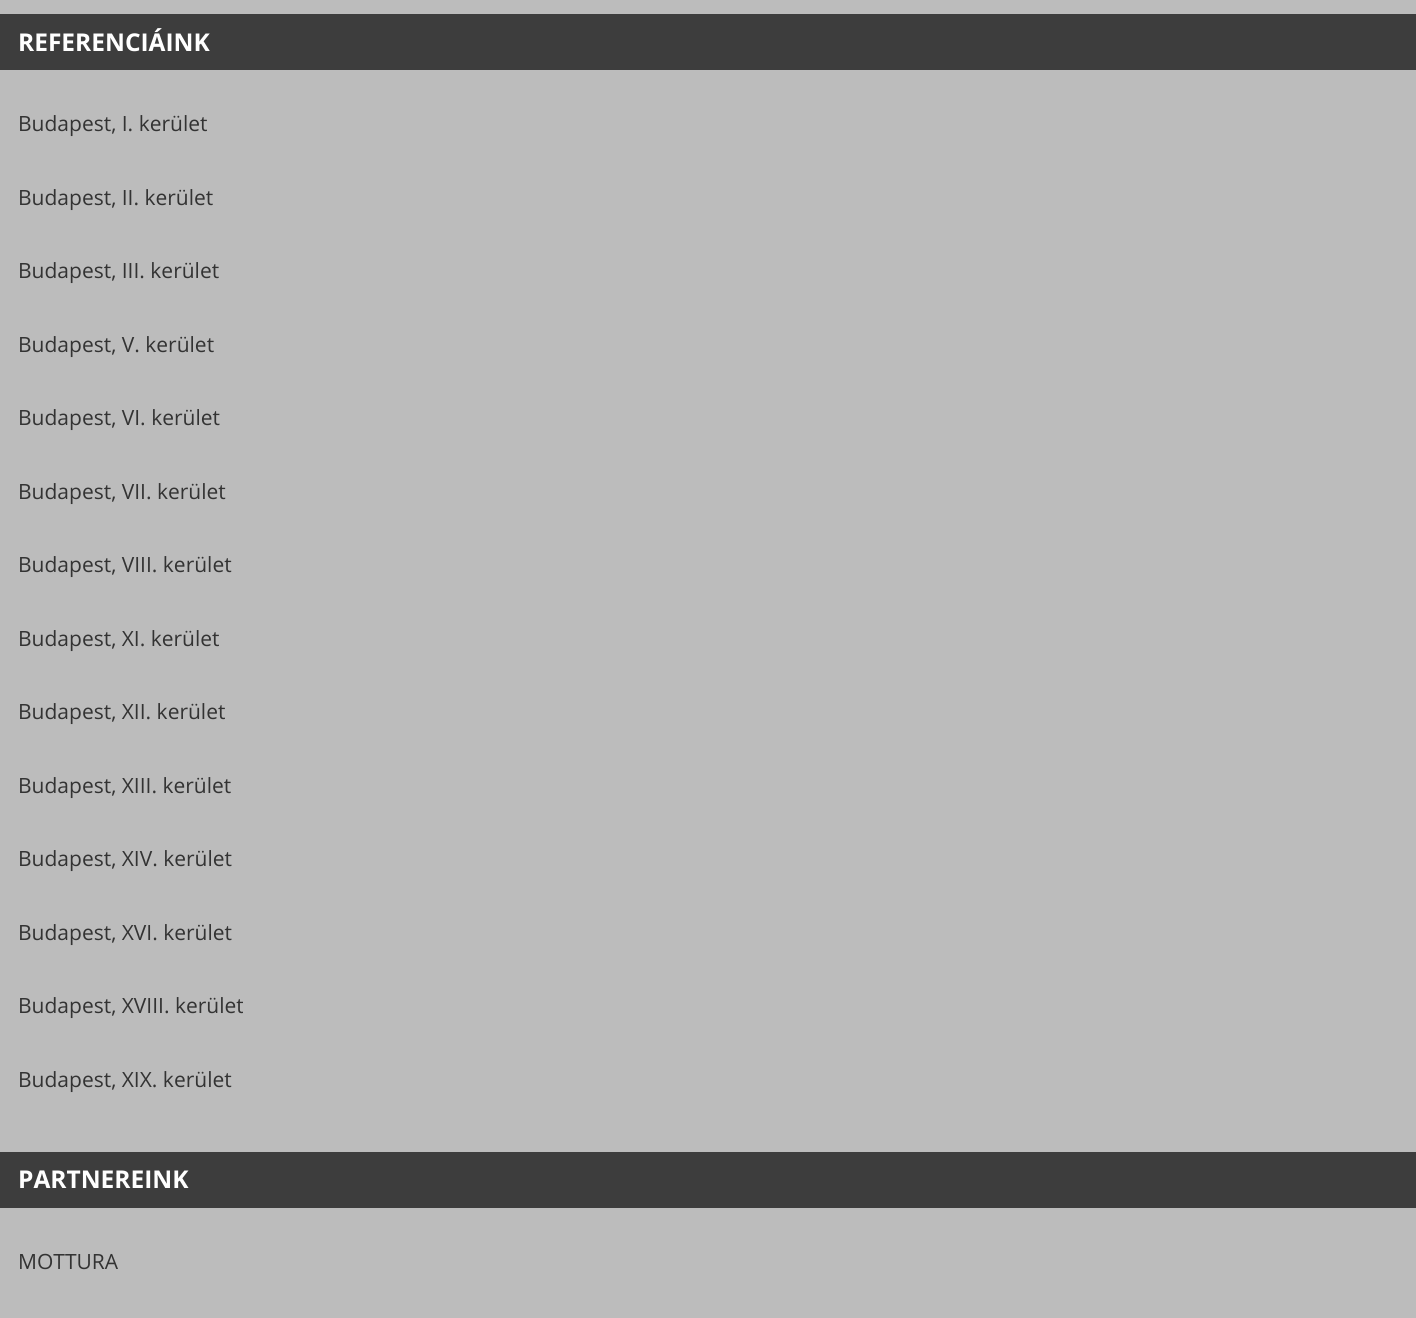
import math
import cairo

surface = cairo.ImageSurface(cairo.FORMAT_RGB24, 1416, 1318)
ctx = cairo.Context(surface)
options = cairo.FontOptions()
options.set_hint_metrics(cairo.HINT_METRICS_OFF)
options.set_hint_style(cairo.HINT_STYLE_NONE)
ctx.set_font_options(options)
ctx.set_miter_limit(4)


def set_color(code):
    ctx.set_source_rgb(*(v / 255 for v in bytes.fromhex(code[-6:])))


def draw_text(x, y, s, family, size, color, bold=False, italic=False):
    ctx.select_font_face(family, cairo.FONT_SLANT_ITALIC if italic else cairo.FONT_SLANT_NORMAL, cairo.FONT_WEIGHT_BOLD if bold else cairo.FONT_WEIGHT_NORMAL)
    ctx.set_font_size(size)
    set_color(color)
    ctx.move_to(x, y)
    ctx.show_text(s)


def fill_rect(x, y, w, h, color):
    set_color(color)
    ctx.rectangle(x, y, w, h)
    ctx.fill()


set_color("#bcbcbc")
ctx.paint()
fill_rect(0, 14, 1416, 56, "#3d3d3d")
draw_text(18, 51, "REFERENCIÁINK", "Open Sans", 24.5, "#ffffff", bold=True)
draw_text(18, 131, "Budapest, I. kerület", "Open Sans", 21, "#333333")
draw_text(18, 205, "Budapest, II. kerület", "Open Sans", 21, "#333333")
draw_text(18, 278, "Budapest, III. kerület", "Open Sans", 21, "#333333")
draw_text(18, 352, "Budapest, V. kerület", "Open Sans", 21, "#333333")
draw_text(18, 425, "Budapest, VI. kerület", "Open Sans", 21, "#333333")
draw_text(18, 499, "Budapest, VII. kerület", "Open Sans", 21, "#333333")
draw_text(18, 572, "Budapest, VIII. kerület", "Open Sans", 21, "#333333")
draw_text(18, 646, "Budapest, XI. kerület", "Open Sans", 21, "#333333")
draw_text(18, 719, "Budapest, XII. kerület", "Open Sans", 21, "#333333")
draw_text(18, 793, "Budapest, XIII. kerület", "Open Sans", 21, "#333333")
draw_text(18, 866, "Budapest, XIV. kerület", "Open Sans", 21, "#333333")
draw_text(18, 940, "Budapest, XVI. kerület", "Open Sans", 21, "#333333")
draw_text(18, 1013, "Budapest, XVIII. kerület", "Open Sans", 21, "#333333")
draw_text(18, 1087, "Budapest, XIX. kerület", "Open Sans", 21, "#333333")
fill_rect(0, 1152, 1416, 56, "#3d3d3d")
draw_text(18, 1188, "PARTNEREINK", "Open Sans", 24.5, "#ffffff", bold=True)
draw_text(18, 1269, "MOTTURA", "Open Sans", 21, "#333333")
surface.write_to_png("output.png")
